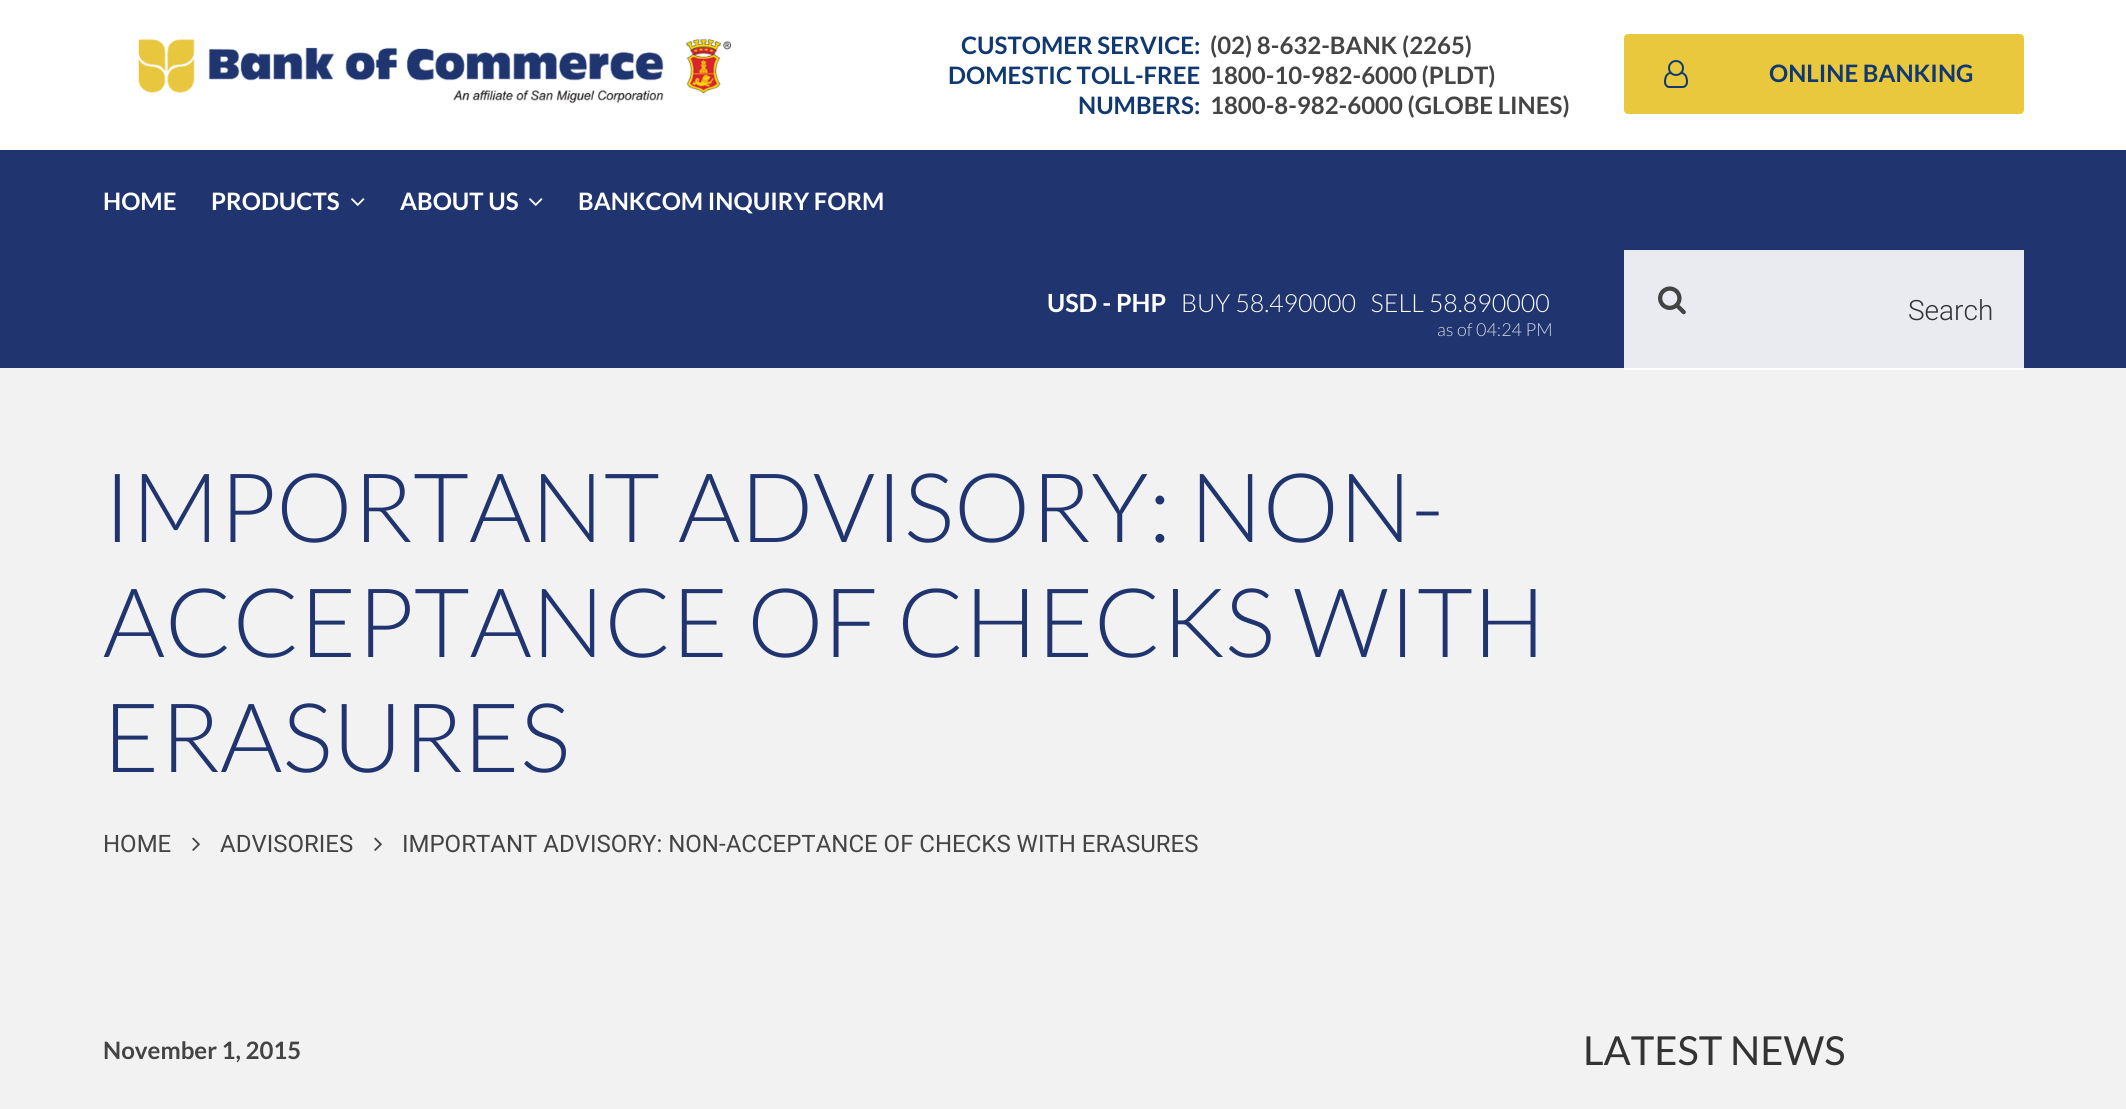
import math
import cairo

surface = cairo.ImageSurface(cairo.FORMAT_RGB24, 2126, 1109)
ctx = cairo.Context(surface)
options = cairo.FontOptions()
options.set_hint_metrics(cairo.HINT_METRICS_OFF)
options.set_hint_style(cairo.HINT_STYLE_NONE)
ctx.set_font_options(options)
ctx.set_miter_limit(4)


def set_color(code):
    ctx.set_source_rgb(*(v / 255 for v in bytes.fromhex(code[-6:])))


def draw_text(x, y, s, family, size, color, bold=False, italic=False):
    ctx.select_font_face(family, cairo.FONT_SLANT_ITALIC if italic else cairo.FONT_SLANT_NORMAL, cairo.FONT_WEIGHT_BOLD if bold else cairo.FONT_WEIGHT_NORMAL)
    ctx.set_font_size(size)
    set_color(color)
    ctx.move_to(x, y)
    ctx.show_text(s)


def fill_rect(x, y, w, h, color):
    set_color(color)
    ctx.rectangle(x, y, w, h)
    ctx.fill()


def rounded_rect(x, y, w, h, r):
    ctx.new_sub_path()
    for i, (u, v) in enumerate([(x + w - r, y + h - r), (x + r, y + h - r), (x + r, y + r), (x + w - r, y + r)]):
        ctx.arc(u, v, r, i * math.pi / 2, (i + 1) * math.pi / 2)
    ctx.close_path()


def draw_image(path, x, y, w, h):
    ctx.save()
    ctx.set_source_surface(cairo.ImageSurface.create_from_png(path), x, y)
    ctx.rectangle(x, y, w, h)
    ctx.fill()
    ctx.restore()


set_color("#f2f2f2")
ctx.paint()
fill_rect(1624, 368, 400, 2, "#fefefe")
fill_rect(0, 0, 2126, 150, "#ffffff")
draw_image("assets/img1.png", 138, 39, 593, 64)
draw_text(961, 54, "CUSTOMER SERVICE:", "Lato", 24, "#103871", bold=True)
draw_text(1210, 54, "(02) 8-632-BANK (2265)", "Lato", 24, "#444444", bold=True)
draw_text(948, 84, "DOMESTIC TOLL-FREE", "Lato", 24, "#103871", bold=True)
draw_text(1078, 114, "NUMBERS:", "Lato", 24, "#103871", bold=True)
draw_text(1210, 84, "1800-10-982-6000 (PLDT)", "Lato", 24, "#444444", bold=True)
draw_text(1210, 114, "1800-8-982-6000 (GLOBE LINES)", "Lato", 24, "#444444", bold=True)
set_color("#e9c83d")
rounded_rect(1624, 34, 400, 80, 4)
ctx.fill()
draw_image("assets/img2.png", 1664, 60, 24, 28)
draw_text(1769, 82, "ONLINE BANKING", "Lato", 24, "#103871", bold=True)
fill_rect(0, 150, 2126, 218, "#20356f")
fill_rect(1624, 250, 400, 118, "#e9ebf1")
draw_text(103, 210, "HOME", "Lato", 24, "#ffffff", bold=True)
draw_text(211, 210, "PRODUCTS", "Lato", 24, "#ffffff", bold=True)
draw_image("assets/img3.png", 351, 198, 14, 8)
draw_text(400, 210, "ABOUT US", "Lato", 24, "#ffffff", bold=True)
draw_image("assets/img3.png", 529, 198, 14, 8)
draw_text(578, 210, "BANKCOM INQUIRY FORM", "Lato", 24, "#ffffff", bold=True)
draw_text(1047, 312, "USD - PHP", "Lato", 25, "#ffffff", bold=True)
draw_text(1181, 312, "BUY 58.490000   SELL 58.890000", "Lato Light", 25, "#ffffff")
draw_text(1437, 336, "as of 04:24 PM", "Lato Light", 18, "#d2d7e2")
draw_image("assets/img4.png", 1658, 286, 28, 29)
draw_text(1908, 320, "Search", "Roboto Light", 28, "#333333")
draw_text(103, 542, "IMPORTANT ADVISORY: NON-", "Lato Light", 96, "#20356f")
draw_text(103, 657, "ACCEPTANCE OF CHECKS WITH", "Lato Light", 96, "#20356f")
draw_text(103, 772, "ERASURES", "Lato Light", 96, "#20356f")
draw_text(103, 852, "HOME", "Roboto", 24, "#444444")
draw_image("assets/img5.png", 192, 837, 8, 14)
draw_text(220, 852, "ADVISORIES", "Roboto", 24, "#444444")
draw_image("assets/img5.png", 374, 837, 8, 14)
draw_text(402, 852, "IMPORTANT ADVISORY: NON-ACCEPTANCE OF CHECKS WITH ERASURES", "Roboto", 24, "#444444")
draw_text(103, 1059, "November 1, 2015", "Lato", 24, "#444444", bold=True)
draw_text(1583, 1065, "LATEST NEWS", "Lato", 40, "#333333")
surface.write_to_png("output.png")
